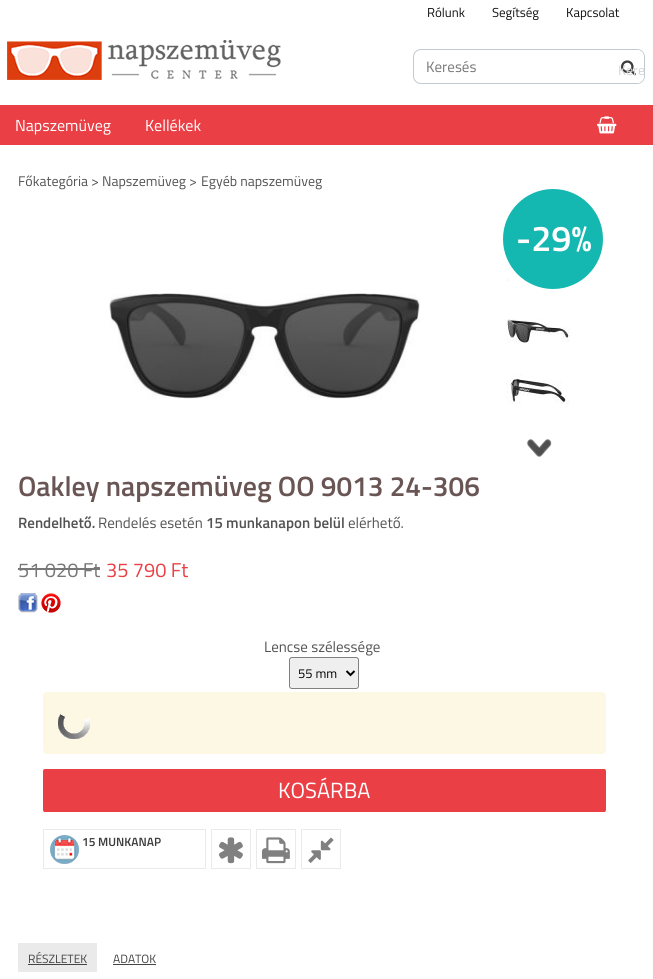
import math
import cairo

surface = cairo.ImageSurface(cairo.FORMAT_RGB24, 653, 979)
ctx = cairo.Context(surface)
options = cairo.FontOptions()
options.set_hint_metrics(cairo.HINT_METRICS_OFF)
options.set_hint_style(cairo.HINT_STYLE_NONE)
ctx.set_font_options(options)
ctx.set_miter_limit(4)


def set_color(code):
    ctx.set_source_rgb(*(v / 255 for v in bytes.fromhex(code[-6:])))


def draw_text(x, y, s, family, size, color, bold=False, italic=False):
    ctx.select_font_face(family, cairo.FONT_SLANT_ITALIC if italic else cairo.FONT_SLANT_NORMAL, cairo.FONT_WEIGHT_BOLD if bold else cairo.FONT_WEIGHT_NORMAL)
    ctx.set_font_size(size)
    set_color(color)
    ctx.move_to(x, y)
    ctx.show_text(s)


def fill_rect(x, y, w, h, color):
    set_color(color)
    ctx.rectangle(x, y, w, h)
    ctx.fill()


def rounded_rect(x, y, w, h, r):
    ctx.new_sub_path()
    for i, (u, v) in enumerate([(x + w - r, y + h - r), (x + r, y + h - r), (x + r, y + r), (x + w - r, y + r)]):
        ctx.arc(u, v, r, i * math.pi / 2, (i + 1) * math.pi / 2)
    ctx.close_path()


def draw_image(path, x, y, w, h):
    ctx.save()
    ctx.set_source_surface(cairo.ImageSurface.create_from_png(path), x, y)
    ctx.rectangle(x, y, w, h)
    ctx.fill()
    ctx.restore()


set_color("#ffffff")
ctx.paint()
draw_text(427, 17, "Rólunk", "Titillium Web", 13, "#111111")
draw_text(492, 17, "Segítség", "Titillium Web", 13, "#111111")
draw_text(566, 17, "Kapcsolat", "Titillium Web", 13, "#111111")
draw_image("assets/img1.png", 7, 40, 274, 40)
rounded_rect(413.5, 49.5, 231, 34, 7.5)
set_color("#bfcbd0")
ctx.set_line_width(1)
ctx.stroke()
draw_text(426, 72, "Keresés", "Titillium Web", 15, "#777777")
set_color("#ffffff")
ctx.new_path()
ctx.move_to(613, 50)
ctx.line_to(637, 50)
ctx.curve_to(641, 50, 644, 53, 644, 57)
ctx.line_to(644, 76)
ctx.curve_to(644, 80, 641, 83, 637, 83)
ctx.line_to(613, 83)
ctx.close_path()
ctx.fill()
draw_image("assets/img2.png", 621, 60, 15, 16)
draw_text(618, 75, "Kere", "Titillium Web", 14, "#d5d5d5")
fill_rect(0, 105, 653, 40, "#e93f45")
draw_text(15, 131, "Napszemüveg", "Titillium Web", 16, "#ffffff")
draw_text(145, 131, "Kellékek", "Titillium Web", 16, "#ffffff")
draw_image("assets/img3.png", 597, 116, 20, 18)
draw_text(18, 186, "Főkategória >", "Titillium Web", 14, "#535353")
draw_text(102, 186, "Napszemüveg >", "Titillium Web", 14, "#535353")
draw_text(201, 186, "Egyéb napszemüveg", "Titillium Web", 14, "#535353")
draw_image("assets/img12.png", 506, 276, 7, 7)
set_color("#15b7b1")
ctx.arc(553, 239, 55, 0, 2 * math.pi)
ctx.fill_preserve()
set_color("#ffffff")
ctx.set_line_width(10)
ctx.stroke()
draw_text(516, 251, "-29%", "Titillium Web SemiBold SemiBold", 36, "#ffffff")
draw_text(18, 496, "Oakley napszemüveg OO 9013 24-306", "Titillium Web SemiBold SemiBold", 28, "#6a5555")
draw_text(18, 528, "Rendelhető.", "Titillium Web SemiBold SemiBold", 15, "#535353")
draw_text(98, 528, "Rendelés esetén", "Titillium Web", 15, "#535353")
draw_text(206, 528, "15 munkanapon belül", "Titillium Web SemiBold SemiBold", 15, "#535353")
draw_text(348, 528, "elérhető.", "Titillium Web", 15, "#535353")
draw_text(18, 577, "51 020 Ft", "Titillium Web", 20, "#777777")
fill_rect(18, 568, 82, 2, "#777777")
draw_text(106, 577, "35 790 Ft", "Titillium Web", 20, "#e93f45")
draw_image("assets/img4.png", 18, 593, 20, 20)
draw_image("assets/img5.png", 41, 593, 20, 20)
draw_text(264, 652, "Lencse szélessége", "Titillium Web", 15, "#535353")
set_color("#efefef")
rounded_rect(289.5, 657.5, 69, 31, 2.5)
ctx.fill_preserve()
set_color("#808080")
ctx.set_line_width(1)
ctx.stroke()
ctx.new_path()
ctx.move_to(346.5, 671)
ctx.line_to(350.5, 675)
ctx.line_to(354.5, 671)
set_color("#000000")
ctx.set_line_width(2)
ctx.stroke()
draw_text(298, 678, "55 mm", "Titillium Web", 13, "#000000")
set_color("#fcf8e3")
rounded_rect(43, 692, 563, 62, 4)
ctx.fill()
draw_image("assets/img6.png", 58, 714, 32, 25)
set_color("#e93f45")
rounded_rect(43, 769, 563, 43, 2)
ctx.fill()
fill_rect(44, 811, 561, 1, "#e93f45")
draw_text(278, 798, "KOSÁRBA", "Titillium Web", 22, "#ffffff")
draw_image("assets/img7.png", 50, 835, 29, 29)
ctx.rectangle(43.5, 829.5, 162, 39)
set_color("#eaeaea")
ctx.set_line_width(1)
ctx.stroke()
draw_text(82, 846, "15 MUNKANAP", "Titillium Web SemiBold SemiBold", 12, "#3a3a3a")
ctx.rectangle(211.5, 829.5, 39, 39)
set_color("#eaeaea")
ctx.stroke()
draw_image("assets/img8.png", 219, 837, 24, 27)
ctx.rectangle(256.5, 829.5, 39, 39)
ctx.stroke()
draw_image("assets/img9.png", 262, 837, 28, 27)
ctx.rectangle(301.5, 829.5, 39, 39)
ctx.stroke()
draw_image("assets/img10.png", 308, 837, 26, 26)
draw_image("assets/img11.png", 109, 293, 311, 106)
draw_image("assets/img13.png", 506, 319, 64, 24)
draw_image("assets/img14.png", 506, 373, 64, 31)
draw_image("assets/img15.png", 527, 439, 25, 18)
fill_rect(18, 943, 79, 29, "#eaeaea")
draw_text(28, 963, "RÉSZLETEK", "Titillium Web", 12, "#444444")
fill_rect(28, 964, 59, 1, "#444444")
draw_text(113, 963, "ADATOK", "Titillium Web", 12, "#444444")
fill_rect(113, 964, 43, 1, "#444444")
surface.write_to_png("output.png")
